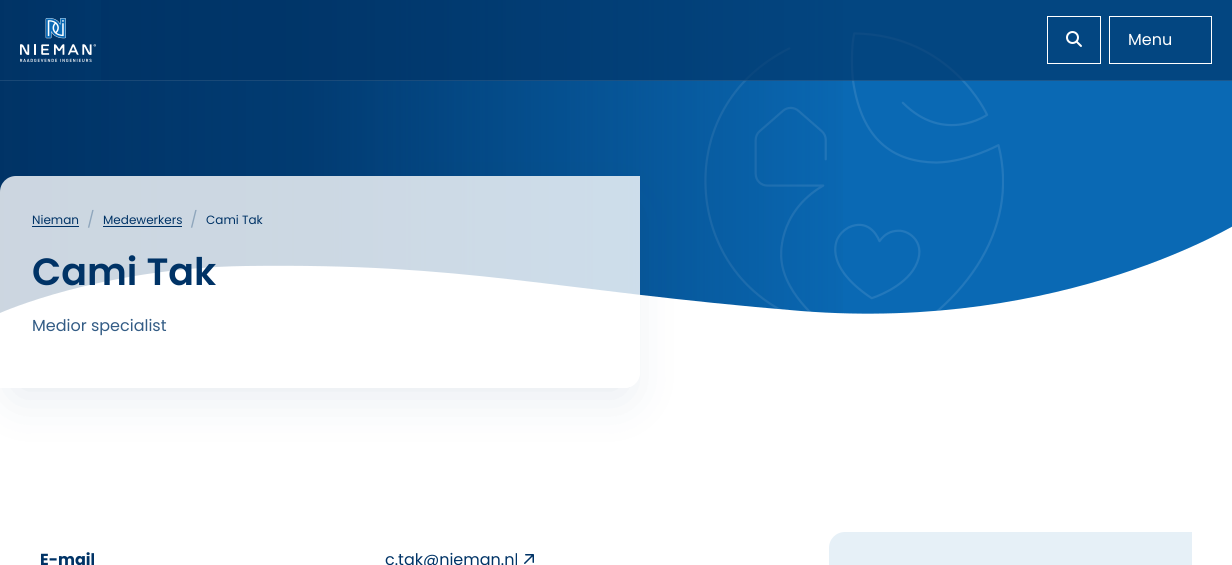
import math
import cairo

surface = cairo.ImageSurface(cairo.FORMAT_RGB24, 1232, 565)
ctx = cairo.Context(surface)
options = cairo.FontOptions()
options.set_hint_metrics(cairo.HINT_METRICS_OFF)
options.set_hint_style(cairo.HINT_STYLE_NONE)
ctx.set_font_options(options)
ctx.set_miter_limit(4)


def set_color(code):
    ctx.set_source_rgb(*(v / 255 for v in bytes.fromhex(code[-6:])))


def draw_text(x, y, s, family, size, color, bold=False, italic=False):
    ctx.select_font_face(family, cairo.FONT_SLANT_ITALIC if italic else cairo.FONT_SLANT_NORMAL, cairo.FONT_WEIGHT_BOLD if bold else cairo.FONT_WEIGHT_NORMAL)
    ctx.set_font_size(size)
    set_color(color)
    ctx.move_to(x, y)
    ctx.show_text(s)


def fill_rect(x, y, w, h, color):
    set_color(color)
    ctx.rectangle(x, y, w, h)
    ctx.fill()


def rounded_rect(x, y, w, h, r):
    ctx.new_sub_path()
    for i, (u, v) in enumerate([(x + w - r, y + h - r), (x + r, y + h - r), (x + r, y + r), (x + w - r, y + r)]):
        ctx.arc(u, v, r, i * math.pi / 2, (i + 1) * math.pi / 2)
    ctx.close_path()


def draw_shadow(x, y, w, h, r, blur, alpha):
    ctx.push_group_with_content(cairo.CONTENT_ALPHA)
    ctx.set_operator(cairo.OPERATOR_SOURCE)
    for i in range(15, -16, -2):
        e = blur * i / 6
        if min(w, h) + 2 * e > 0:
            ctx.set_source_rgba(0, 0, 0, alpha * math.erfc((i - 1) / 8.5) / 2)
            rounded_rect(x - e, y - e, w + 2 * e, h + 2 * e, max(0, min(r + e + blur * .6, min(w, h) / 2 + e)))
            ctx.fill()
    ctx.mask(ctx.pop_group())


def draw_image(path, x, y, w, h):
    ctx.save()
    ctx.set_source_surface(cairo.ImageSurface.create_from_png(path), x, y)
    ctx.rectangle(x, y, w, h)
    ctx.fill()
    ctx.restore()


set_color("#ffffff")
ctx.paint()
fill_rect(12, 0, 1220, 314, "#0a69b4")
draw_image("assets/img3.png", 704, 32, 300, 280)
gradient = cairo.LinearGradient(0, 158, 1232, 158)
gradient.add_color_stop_rgba(0, 0, 0.2, 0.4, 1)
gradient.add_color_stop_rgba(0.25, 0, 0.2, 0.4, 0.85)
gradient.add_color_stop_rgba(0.7, 0, 0.2, 0.4, 0)
ctx.set_source(gradient)
ctx.rectangle(0, 0, 843, 314)
ctx.fill()
ctx.set_source_rgba(0, 0.2, 0.4, 0.65)
ctx.rectangle(101, 0, 1131, 81)
ctx.fill()
ctx.set_source_rgba(1, 1, 1, 0.1)
ctx.rectangle(0, 80, 1232, 1)
ctx.fill()
draw_image("assets/img1.png", 20, 18, 76, 44)
ctx.rectangle(1047.5, 16.5, 53, 47)
set_color("#ffffff")
ctx.set_line_width(1)
ctx.stroke()
draw_image("assets/img2.png", 1066, 31, 16, 16)
ctx.rectangle(1109.5, 16.5, 102, 47)
ctx.stroke()
draw_text(1128, 45, "Menu", "Poppins", 16, "#ffffff")
ctx.new_path()
ctx.move_to(0, 313)
ctx.line_to(0, 316)
ctx.line_to(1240, 316)
ctx.line_to(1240, 222)
ctx.curve_to(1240, 222, 1065, 332, 801, 311)
ctx.curve_to(547, 290, 469, 263, 246, 266)
ctx.curve_to(100, 268, 0, 313, 0, 313)
ctx.close_path()
ctx.fill()
ctx.save()
ctx.set_fill_rule(cairo.FILL_RULE_EVEN_ODD)
ctx.new_path()
ctx.move_to(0, 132)
ctx.line_to(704, 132)
ctx.line_to(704, 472)
ctx.line_to(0, 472)
ctx.close_path()
ctx.move_to(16, 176)
ctx.line_to(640, 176)
ctx.line_to(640, 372)
ctx.curve_to(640, 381, 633, 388, 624, 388)
ctx.line_to(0, 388)
ctx.line_to(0, 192)
ctx.curve_to(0, 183, 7, 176, 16, 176)
ctx.close_path()
ctx.clip()
set_color("#003366")
draw_shadow(12, 208, 616, 188, 4, 25, 0.1)
ctx.restore()
ctx.set_source_rgba(1, 1, 1, 0.8)
ctx.new_path()
ctx.move_to(16, 176)
ctx.line_to(640, 176)
ctx.line_to(640, 372)
ctx.curve_to(640, 381, 633, 388, 624, 388)
ctx.line_to(0, 388)
ctx.line_to(0, 192)
ctx.curve_to(0, 183, 7, 176, 16, 176)
ctx.close_path()
ctx.fill()
draw_text(32, 224, "Nieman", "Poppins", 12, "#003366")
fill_rect(32, 226, 47, 1, "#003366")
draw_text(87, 225, "/", "Poppins", 16, "#8fa6bc")
draw_text(103, 224, "Medewerkers", "Poppins", 12, "#003366")
fill_rect(103, 226, 79, 1, "#003366")
draw_text(190, 225, "/", "Poppins", 16, "#8fa6bc")
draw_text(206, 224, "Cami Tak", "Poppins", 12, "#003366")
draw_text(32, 285, "Cami Tak", "Poppins SemiBold", 38, "#003366")
draw_text(32, 331, "Medior specialist", "Poppins", 16, "#335c85")
draw_text(40, 565, "E-mail", "Poppins", 16, "#003366", bold=True)
draw_text(385, 565, "c.tak@nieman.nl", "Poppins", 16, "#003366")
draw_image("assets/img4.png", 524, 554, 10, 10)
set_color("#e6f0f7")
ctx.new_path()
ctx.move_to(845, 532)
ctx.line_to(1192, 532)
ctx.line_to(1192, 565)
ctx.curve_to(1192, 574, 1185, 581, 1176, 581)
ctx.line_to(829, 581)
ctx.line_to(829, 548)
ctx.curve_to(829, 539, 836, 532, 845, 532)
ctx.close_path()
ctx.fill()
surface.write_to_png("output.png")
